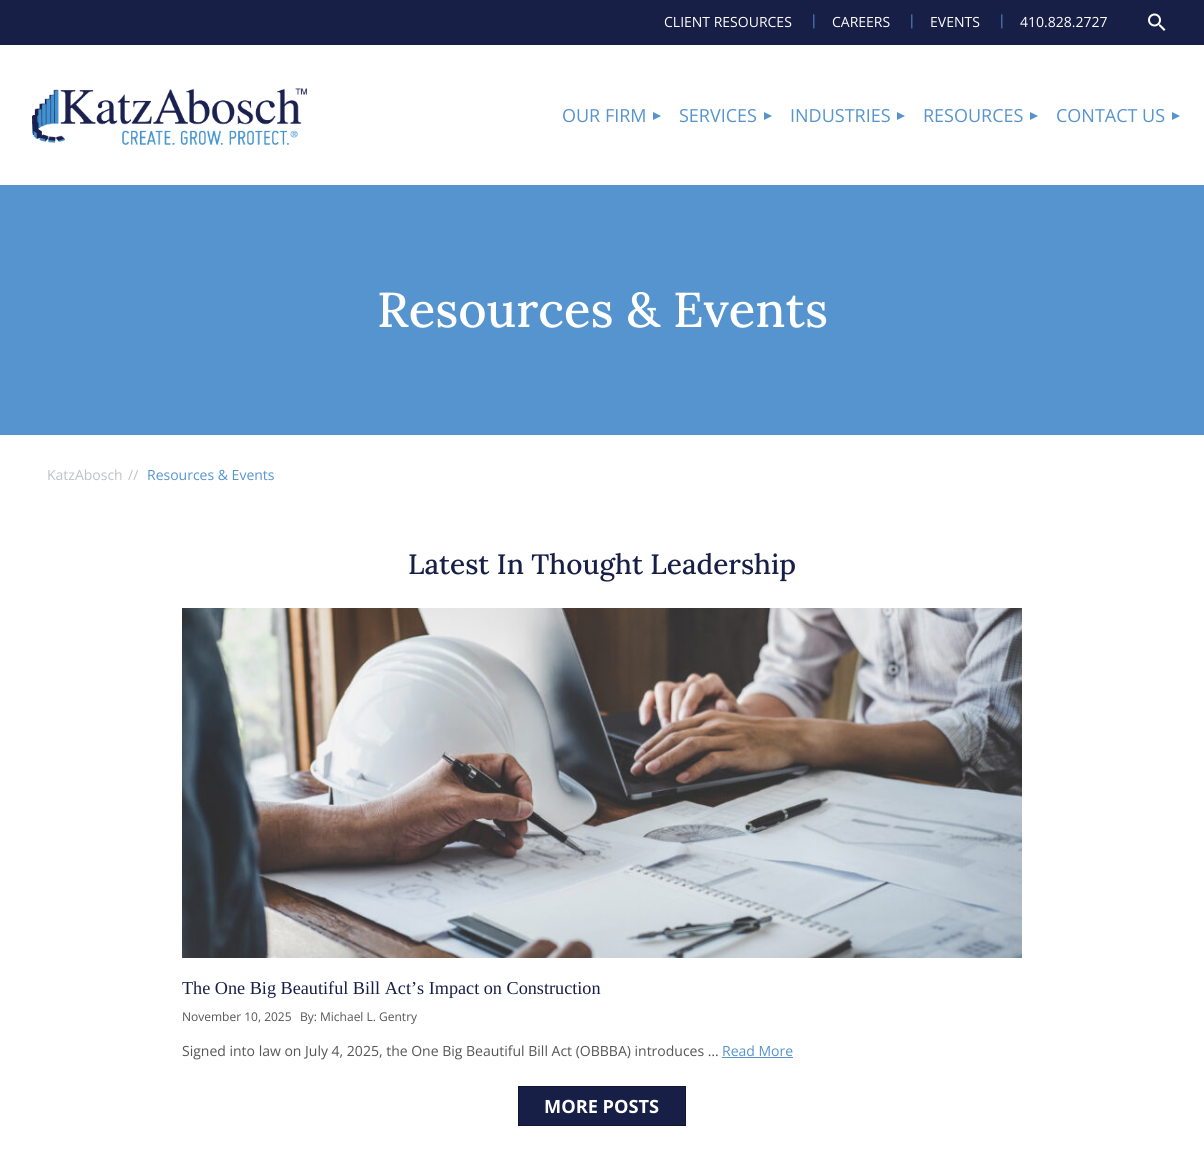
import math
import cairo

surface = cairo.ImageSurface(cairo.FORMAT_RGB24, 1204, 1151)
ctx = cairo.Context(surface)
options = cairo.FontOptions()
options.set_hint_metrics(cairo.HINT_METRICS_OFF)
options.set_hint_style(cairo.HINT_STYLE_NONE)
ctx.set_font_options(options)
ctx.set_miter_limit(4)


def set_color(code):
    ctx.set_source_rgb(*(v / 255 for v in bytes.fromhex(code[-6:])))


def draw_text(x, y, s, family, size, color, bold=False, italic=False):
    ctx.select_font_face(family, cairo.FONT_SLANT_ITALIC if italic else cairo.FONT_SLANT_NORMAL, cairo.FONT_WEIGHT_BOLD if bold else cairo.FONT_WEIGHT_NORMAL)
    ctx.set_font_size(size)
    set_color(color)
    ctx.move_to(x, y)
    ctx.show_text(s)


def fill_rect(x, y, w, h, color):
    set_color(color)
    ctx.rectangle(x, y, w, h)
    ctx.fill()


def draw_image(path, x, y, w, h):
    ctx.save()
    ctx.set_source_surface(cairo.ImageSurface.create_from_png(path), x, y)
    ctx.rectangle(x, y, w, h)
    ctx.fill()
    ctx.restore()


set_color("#ffffff")
ctx.paint()
fill_rect(0, 0, 1204, 45, "#171f47")
draw_text(664, 27, "CLIENT RESOURCES", "Open Sans", 14, "#ffffff")
draw_text(810, 25, "|", "Open Sans", 14, "#5594cf")
draw_text(832, 27, "CAREERS", "Open Sans", 14, "#ffffff")
draw_text(908, 25, "|", "Open Sans", 14, "#5594cf")
draw_text(930, 27, "EVENTS", "Open Sans", 14, "#ffffff")
draw_text(998, 25, "|", "Open Sans", 14, "#5594cf")
draw_text(1020, 27, "410.828.2727", "Open Sans", 14, "#ffffff")
draw_image("assets/img1.png", 1148, 13, 18, 18)
draw_image("assets/img2.png", 32, 88, 275, 57)
draw_text(562, 122, "OUR FIRM", "Open Sans", 18, "#5594cf")
ctx.new_path()
ctx.move_to(653, 120)
ctx.line_to(653, 112)
ctx.line_to(661, 116)
ctx.close_path()
ctx.fill()
draw_text(679, 122, "SERVICES", "Open Sans", 18, "#5594cf")
ctx.new_path()
ctx.move_to(764, 120)
ctx.line_to(764, 112)
ctx.line_to(772, 116)
ctx.close_path()
ctx.fill()
draw_text(790, 122, "INDUSTRIES", "Open Sans", 18, "#5594cf")
ctx.new_path()
ctx.move_to(897, 120)
ctx.line_to(897, 112)
ctx.line_to(905, 116)
ctx.close_path()
ctx.fill()
draw_text(923, 122, "RESOURCES", "Open Sans", 18, "#5594cf")
ctx.new_path()
ctx.move_to(1030, 120)
ctx.line_to(1030, 112)
ctx.line_to(1038, 116)
ctx.close_path()
ctx.fill()
draw_text(1056, 122, "CONTACT US", "Open Sans", 18, "#5594cf")
ctx.new_path()
ctx.move_to(1172, 120)
ctx.line_to(1172, 112)
ctx.line_to(1180, 116)
ctx.close_path()
ctx.fill()
fill_rect(0, 185, 1204, 250, "#5594cf")
draw_text(377, 327, "Resources & Events", "Lora Medium", 49, "#ffffff")
draw_text(47, 480, "KatzAbosch", "Open Sans", 14, "#bec1c3")
draw_text(128, 480, "//", "Open Sans", 14, "#bec1c3")
draw_text(147, 480, "Resources & Events", "Open Sans", 14, "#5594cf")
draw_text(408, 574, "Latest In Thought Leadership", "Lora Medium", 28, "#171f47")
draw_image("assets/img3.png", 182, 608, 840, 350)
draw_text(182, 994, "The One Big Beautiful Bill Act’s Impact on Construction", "Liberation Serif", 18.2, "#171f47")
draw_text(182, 1021, "November 10, 2025", "Open Sans", 12, "#555555")
draw_text(300, 1021, "By: Michael L. Gentry", "Open Sans", 12, "#555555")
draw_text(182, 1056, "Signed into law on July 4, 2025, the One Big Beautiful Bill Act (OBBBA) introduces …", "Open Sans", 14, "#555555")
draw_text(722, 1056, "Read More", "Open Sans", 14, "#5594cf")
fill_rect(722, 1057, 71, 1, "#5594cf")
set_color("#171f47")
ctx.rectangle(518.5, 1086.5, 167, 39)
ctx.fill_preserve()
set_color("#111734")
ctx.set_line_width(1)
ctx.stroke()
draw_text(544, 1113, "MORE POSTS", "Open Sans", 18.2, "#ffffff", bold=True)
surface.write_to_png("output.png")
